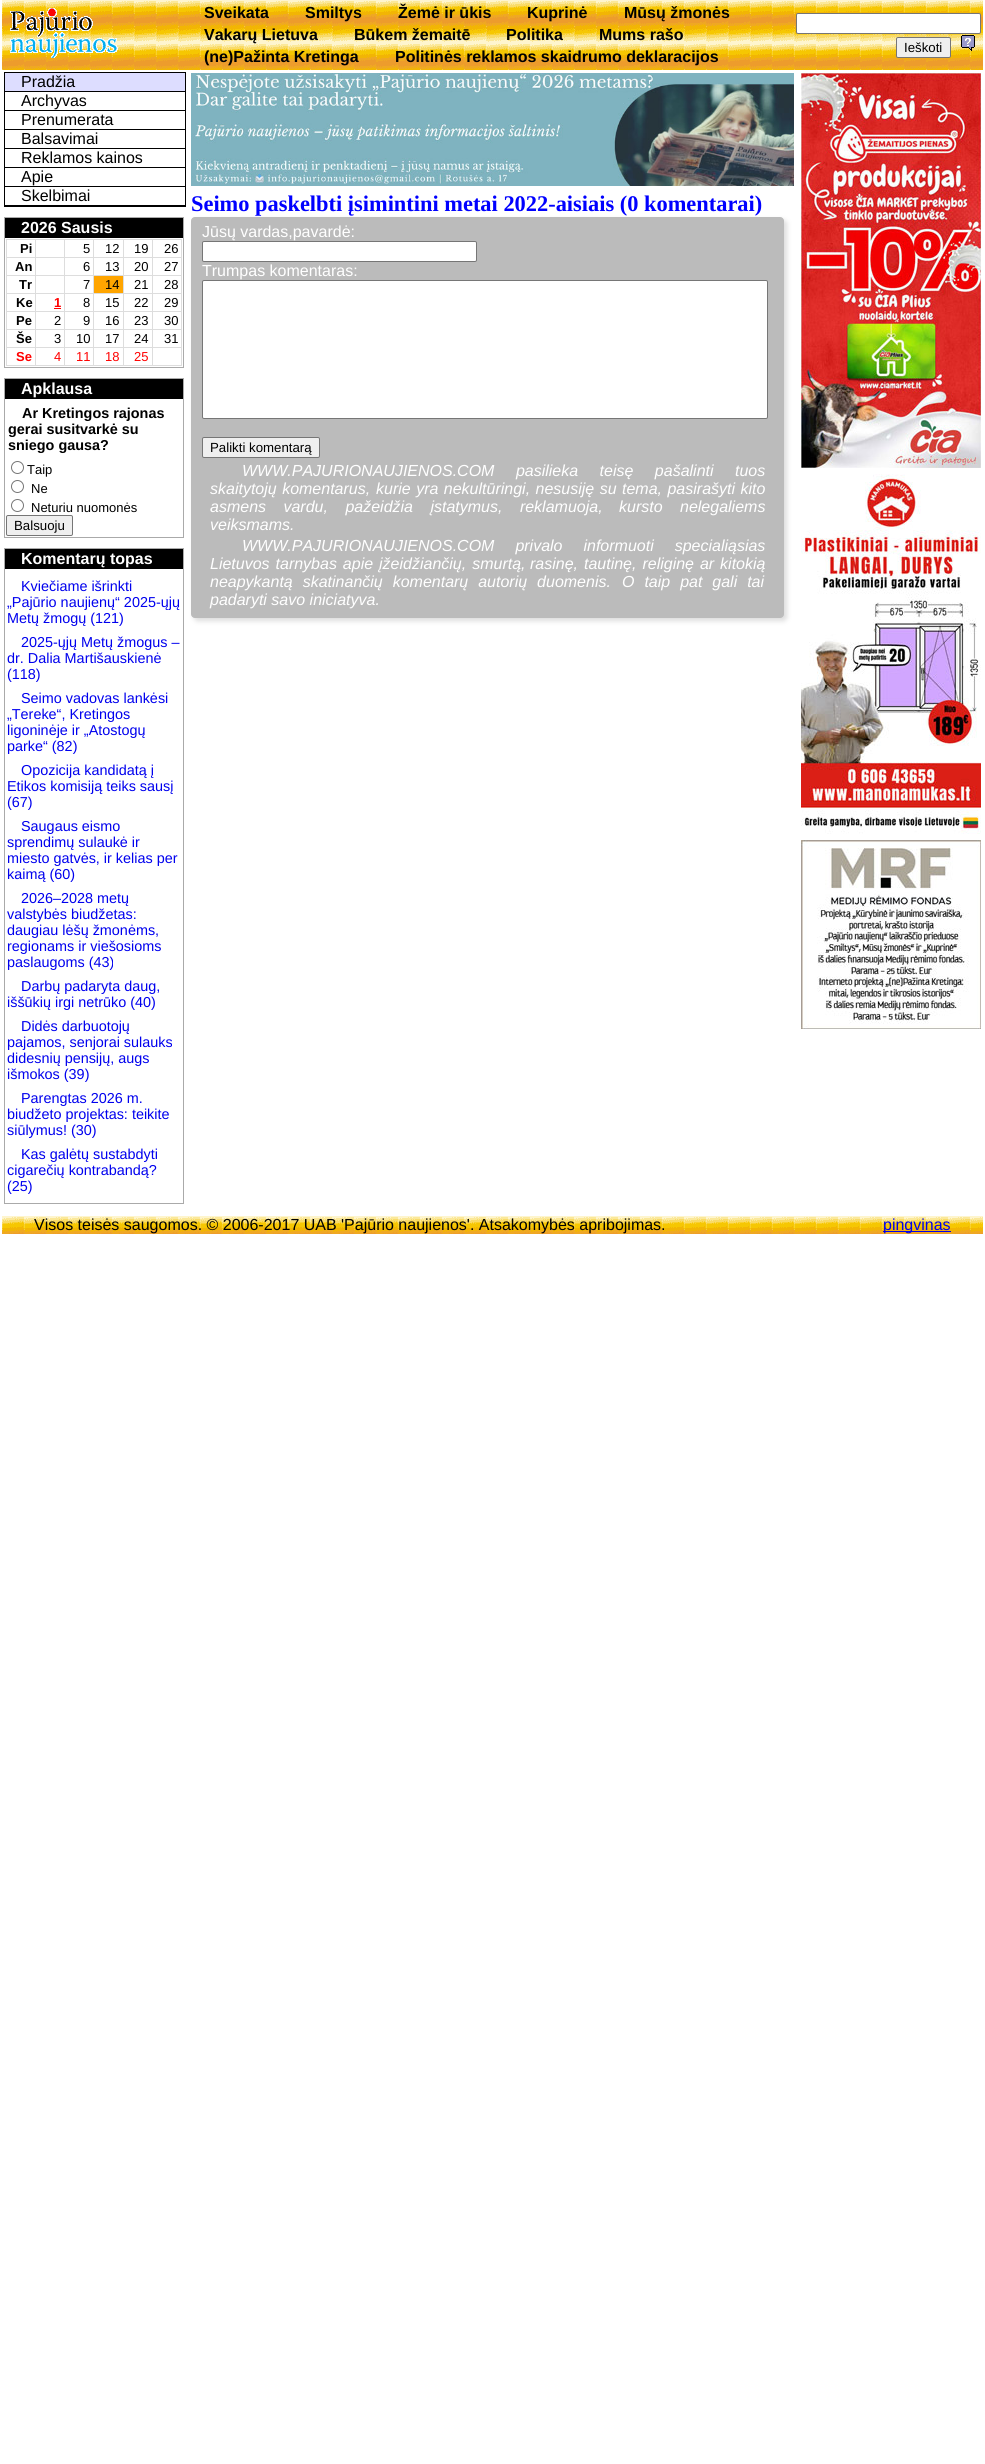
import math
import cairo

surface = cairo.ImageSurface(cairo.FORMAT_RGB24, 985, 2464)
ctx = cairo.Context(surface)
options = cairo.FontOptions()
options.set_hint_metrics(cairo.HINT_METRICS_OFF)
options.set_hint_style(cairo.HINT_STYLE_NONE)
ctx.set_font_options(options)
ctx.set_miter_limit(4)


def set_color(code):
    ctx.set_source_rgb(*(v / 255 for v in bytes.fromhex(code[-6:])))


def draw_text(x, y, s, family, size, color, bold=False, italic=False):
    ctx.select_font_face(family, cairo.FONT_SLANT_ITALIC if italic else cairo.FONT_SLANT_NORMAL, cairo.FONT_WEIGHT_BOLD if bold else cairo.FONT_WEIGHT_NORMAL)
    ctx.set_font_size(size)
    set_color(color)
    ctx.move_to(x, y)
    ctx.show_text(s)


def draw_spaced(x, y, s, letter, word):
    ctx.move_to(x, y)
    for ch in s:
        ctx.show_text(ch)
        ctx.rel_move_to(letter + word * (ch == ' '), 0)


def fill_rect(x, y, w, h, color):
    set_color(color)
    ctx.rectangle(x, y, w, h)
    ctx.fill()


def rounded_rect(x, y, w, h, r):
    ctx.new_sub_path()
    for i, (u, v) in enumerate([(x + w - r, y + h - r), (x + r, y + h - r), (x + r, y + r), (x + w - r, y + r)]):
        ctx.arc(u, v, r, i * math.pi / 2, (i + 1) * math.pi / 2)
    ctx.close_path()


def draw_shadow(x, y, w, h, r, blur, alpha):
    ctx.push_group_with_content(cairo.CONTENT_ALPHA)
    ctx.set_operator(cairo.OPERATOR_SOURCE)
    for i in range(15, -16, -2):
        e = blur * i / 6
        if min(w, h) + 2 * e > 0:
            ctx.set_source_rgba(0, 0, 0, alpha * math.erfc((i - 1) / 8.5) / 2)
            rounded_rect(x - e, y - e, w + 2 * e, h + 2 * e, max(0, min(r + e + blur * .6, min(w, h) / 2 + e)))
            ctx.fill()
    ctx.mask(ctx.pop_group())


def draw_image(path, x, y, w, h):
    ctx.save()
    ctx.set_source_surface(cairo.ImageSurface.create_from_png(path), x, y)
    ctx.rectangle(x, y, w, h)
    ctx.fill()
    ctx.restore()


set_color("#ffffff")
ctx.paint()
draw_image("assets/img1.png", 2, 0, 981, 70)
draw_image("assets/img2.png", 10, 8, 108, 50)
draw_text(204, 18, "Sveikata", "Liberation Sans", 16, "#000000", bold=True)
draw_text(305, 18, "Smiltys", "Liberation Sans", 16, "#000000", bold=True)
draw_text(398, 18, "Žemė ir ūkis", "Liberation Sans", 16, "#000000", bold=True)
draw_text(527, 18, "Kuprinė", "Liberation Sans", 16, "#000000", bold=True)
draw_text(624, 18, "Mūsų žmonės", "Liberation Sans", 16, "#000000", bold=True)
draw_text(204, 40, "Vakarų Lietuva", "Liberation Sans", 16, "#000000", bold=True)
draw_text(354, 40, "Būkem žemaitē", "Liberation Sans", 16, "#000000", bold=True)
draw_text(506, 40, "Politika", "Liberation Sans", 16, "#000000", bold=True)
draw_text(599, 40, "Mums rašo", "Liberation Sans", 16, "#000000", bold=True)
draw_text(204, 62, "(ne)Pažinta Kretinga", "Liberation Sans", 16, "#000000", bold=True)
draw_text(395, 62, "Politinės reklamos skaidrumo deklaracijos", "Liberation Sans", 16, "#000000", bold=True)
set_color("#ffffff")
rounded_rect(796.5, 13.5, 184, 20, 1.5)
ctx.fill_preserve()
set_color("#767676")
ctx.set_line_width(1)
ctx.stroke()
set_color("#efefef")
rounded_rect(896.5, 37.5, 54, 20, 1.5)
ctx.fill_preserve()
set_color("#767676")
ctx.stroke()
draw_text(904, 52, "Ieškoti", "Liberation Sans", 13.25, "#000000")
draw_image("assets/img3.png", 961, 35, 14, 16)
ctx.rectangle(4.5, 72.5, 181, 134)
ctx.stroke()
fill_rect(5, 73, 180, 18, "#ddddff")
fill_rect(5, 91, 180, 1, "#000000")
draw_text(21, 87, "Pradžia", "Liberation Sans", 16, "#000000")
fill_rect(5, 110, 180, 1, "#000000")
draw_text(21, 106, "Archyvas", "Liberation Sans", 16, "#000000")
fill_rect(5, 129, 180, 1, "#000000")
draw_text(21, 125, "Prenumerata", "Liberation Sans", 16, "#000000")
fill_rect(5, 148, 180, 1, "#000000")
draw_text(21, 144, "Balsavimai", "Liberation Sans", 16, "#000000")
fill_rect(5, 167, 180, 1, "#000000")
draw_text(21, 163, "Reklamos kainos", "Liberation Sans", 16, "#000000")
fill_rect(5, 186, 180, 1, "#000000")
draw_text(21, 182, "Apie", "Liberation Sans", 16, "#000000")
fill_rect(5, 205, 180, 1, "#000000")
draw_text(21, 201, "Skelbimai", "Liberation Sans", 16, "#000000")
fill_rect(5, 218, 178, 20, "#000000")
fill_rect(4, 217, 180, 1, "#aaaaaa")
fill_rect(183, 217, 1, 151, "#aaaaaa")
fill_rect(4, 367, 180, 1, "#aaaaaa")
fill_rect(4, 217, 1, 151, "#aaaaaa")
draw_text(21, 233, "2026 Sausis", "Liberation Sans", 16, "#ffffff", bold=True)
fill_rect(6, 239, 175, 126, "#dddddd")
fill_rect(7, 240, 28, 17, "#ffffff")
draw_text(20, 253, "Pi", "Liberation Sans", 13, "#000000", bold=True)
fill_rect(36, 240, 28, 17, "#ffffff")
fill_rect(65, 240, 28, 17, "#ffffff")
draw_text(83, 253, "5", "Liberation Sans", 13, "#000000")
fill_rect(94, 240, 29, 17, "#ffffff")
draw_text(105, 253, "12", "Liberation Sans", 13, "#000000")
fill_rect(124, 240, 28, 17, "#ffffff")
draw_text(134, 253, "19", "Liberation Sans", 13, "#000000")
fill_rect(153, 240, 28, 17, "#ffffff")
draw_text(164, 253, "26", "Liberation Sans", 13, "#000000")
fill_rect(7, 258, 28, 17, "#ffffff")
draw_text(15, 271, "An", "Liberation Sans", 13, "#000000", bold=True)
fill_rect(36, 258, 28, 17, "#ffffff")
fill_rect(65, 258, 28, 17, "#ffffff")
draw_text(83, 271, "6", "Liberation Sans", 13, "#000000")
fill_rect(94, 258, 29, 17, "#ffffff")
draw_text(105, 271, "13", "Liberation Sans", 13, "#000000")
fill_rect(124, 258, 28, 17, "#ffffff")
draw_text(134, 271, "20", "Liberation Sans", 13, "#000000")
fill_rect(153, 258, 28, 17, "#ffffff")
fill_rect(181, 347, 1, 19, "#dddddd")
fill_rect(181, 329, 1, 19, "#dddddd")
fill_rect(181, 311, 1, 19, "#dddddd")
fill_rect(181, 293, 1, 19, "#dddddd")
fill_rect(181, 275, 1, 19, "#dddddd")
fill_rect(181, 239, 1, 37, "#dddddd")
draw_text(164, 271, "27", "Liberation Sans", 13, "#000000")
fill_rect(7, 276, 28, 17, "#ffffff")
draw_text(19, 289, "Tr", "Liberation Sans", 13, "#000000", bold=True)
fill_rect(36, 276, 28, 17, "#ffffff")
fill_rect(65, 276, 28, 17, "#ffffff")
draw_text(83, 289, "7", "Liberation Sans", 13, "#000000")
fill_rect(94, 276, 29, 17, "#ffa500")
draw_text(105, 289, "14", "Liberation Sans", 13, "#000000")
fill_rect(124, 276, 28, 17, "#ffffff")
draw_text(134, 289, "21", "Liberation Sans", 13, "#000000")
fill_rect(153, 276, 28, 17, "#ffffff")
draw_text(164, 289, "28", "Liberation Sans", 13, "#000000")
fill_rect(7, 294, 28, 17, "#ffffff")
draw_text(16, 307, "Ke", "Liberation Sans", 13, "#000000", bold=True)
fill_rect(36, 294, 28, 17, "#ffffff")
draw_text(54, 307, "1", "Liberation Sans", 13, "#ff0000", bold=True)
fill_rect(54, 308, 7, 1, "#ff0000")
fill_rect(65, 294, 28, 17, "#ffffff")
draw_text(83, 307, "8", "Liberation Sans", 13, "#000000")
fill_rect(94, 294, 29, 17, "#ffffff")
draw_text(105, 307, "15", "Liberation Sans", 13, "#000000")
fill_rect(124, 294, 28, 17, "#ffffff")
draw_text(134, 307, "22", "Liberation Sans", 13, "#000000")
fill_rect(153, 294, 28, 17, "#ffffff")
draw_text(164, 307, "29", "Liberation Sans", 13, "#000000")
fill_rect(7, 312, 28, 17, "#ffffff")
draw_text(16, 325, "Pe", "Liberation Sans", 13, "#000000", bold=True)
fill_rect(36, 312, 28, 17, "#ffffff")
draw_text(54, 325, "2", "Liberation Sans", 13, "#000000")
fill_rect(65, 312, 28, 17, "#ffffff")
draw_text(83, 325, "9", "Liberation Sans", 13, "#000000")
fill_rect(94, 312, 29, 17, "#ffffff")
draw_text(105, 325, "16", "Liberation Sans", 13, "#000000")
fill_rect(124, 312, 28, 17, "#ffffff")
draw_text(134, 325, "23", "Liberation Sans", 13, "#000000")
fill_rect(153, 312, 28, 17, "#ffffff")
draw_text(164, 325, "30", "Liberation Sans", 13, "#000000")
fill_rect(7, 330, 28, 17, "#ffffff")
draw_text(16, 343, "Še", "Liberation Sans", 13, "#000000", bold=True)
fill_rect(36, 330, 28, 17, "#ffffff")
draw_text(54, 343, "3", "Liberation Sans", 13, "#000000")
fill_rect(65, 330, 28, 17, "#ffffff")
draw_text(76, 343, "10", "Liberation Sans", 13, "#000000")
fill_rect(94, 330, 29, 17, "#ffffff")
draw_text(105, 343, "17", "Liberation Sans", 13, "#000000")
fill_rect(124, 330, 28, 17, "#ffffff")
draw_text(134, 343, "24", "Liberation Sans", 13, "#000000")
fill_rect(153, 330, 28, 17, "#ffffff")
draw_text(164, 343, "31", "Liberation Sans", 13, "#000000")
fill_rect(153, 348, 28, 17, "#ffffff")
fill_rect(6, 365, 176, 1, "#dddddd")
fill_rect(7, 348, 28, 17, "#ffffff")
draw_text(16, 361, "Se", "Liberation Sans", 13, "#ff0000", bold=True)
fill_rect(36, 348, 28, 17, "#ffffff")
draw_text(54, 361, "4", "Liberation Sans", 13, "#ff0000")
fill_rect(65, 348, 28, 17, "#ffffff")
draw_text(76, 361, "11", "Liberation Sans", 13, "#ff0000")
fill_rect(94, 348, 29, 17, "#ffffff")
draw_text(105, 361, "18", "Liberation Sans", 13, "#ff0000")
fill_rect(124, 348, 28, 17, "#ffffff")
draw_text(134, 361, "25", "Liberation Sans", 13, "#ff0000")
fill_rect(5, 379, 178, 20, "#000000")
fill_rect(4, 378, 180, 1, "#aaaaaa")
fill_rect(183, 378, 1, 160, "#aaaaaa")
fill_rect(4, 537, 180, 1, "#aaaaaa")
fill_rect(4, 378, 1, 160, "#aaaaaa")
draw_text(21, 394, "Apklausa", "Liberation Sans", 16, "#ffffff", bold=True)
draw_text(22, 418, "Ar Kretingos rajonas", "Liberation Sans", 14.4, "#000000", bold=True)
draw_text(8, 434, "gerai susitvarkė su", "Liberation Sans", 14.4, "#000000", bold=True)
draw_text(8, 450, "sniego gausa?", "Liberation Sans", 14.4, "#000000", bold=True)
ctx.new_path()
ctx.arc(17.5, 467.5, 6, 0, 2 * math.pi)
set_color("#767676")
ctx.stroke()
draw_text(27, 474, "Taip", "Liberation Sans", 13, "#000000")
ctx.new_path()
ctx.arc(17.5, 486.5, 6, 0, 2 * math.pi)
set_color("#767676")
ctx.stroke()
draw_text(31, 493, "Ne", "Liberation Sans", 13, "#000000")
ctx.new_path()
ctx.arc(17.5, 505.5, 6, 0, 2 * math.pi)
set_color("#767676")
ctx.stroke()
draw_text(31, 512, "Neturiu nuomonės", "Liberation Sans", 13, "#000000")
set_color("#efefef")
rounded_rect(6.5, 515.5, 66, 20, 1.5)
ctx.fill_preserve()
set_color("#767676")
ctx.stroke()
draw_text(14, 530, "Balsuoju", "Liberation Sans", 13.25, "#000000")
fill_rect(5, 549, 178, 20, "#000000")
fill_rect(4, 548, 180, 1, "#aaaaaa")
fill_rect(183, 548, 1, 656, "#aaaaaa")
fill_rect(4, 1203, 180, 1, "#aaaaaa")
fill_rect(4, 548, 1, 656, "#aaaaaa")
draw_text(21, 564, "Komentarų topas", "Liberation Sans", 16, "#ffffff", bold=True)
draw_text(21, 591, "Kviečiame išrinkti", "Liberation Sans", 14.4, "#0000ee")
draw_text(7, 607, "„Pajūrio naujienų“ 2025-ųjų", "Liberation Sans", 14.4, "#0000ee")
draw_text(7, 623, "Metų žmogų (121)", "Liberation Sans", 14.4, "#0000ee")
draw_text(21, 647, "2025-ųjų Metų žmogus –", "Liberation Sans", 14.4, "#0000ee")
draw_text(7, 663, "dr. Dalia Martišauskienė", "Liberation Sans", 14.4, "#0000ee")
draw_text(7, 679, "(118)", "Liberation Sans", 14.4, "#0000ee")
draw_text(21, 703, "Seimo vadovas lankėsi", "Liberation Sans", 14.4, "#0000ee")
draw_text(7, 719, "„Tereke“, Kretingos", "Liberation Sans", 14.4, "#0000ee")
draw_text(7, 735, "ligoninėje ir „Atostogų", "Liberation Sans", 14.4, "#0000ee")
draw_text(7, 751, "parke“ (82)", "Liberation Sans", 14.4, "#0000ee")
draw_text(21, 775, "Opozicija kandidatą į", "Liberation Sans", 14.4, "#0000ee")
draw_text(7, 791, "Etikos komisiją teiks sausį", "Liberation Sans", 14.4, "#0000ee")
draw_text(7, 807, "(67)", "Liberation Sans", 14.4, "#0000ee")
draw_text(21, 831, "Saugaus eismo", "Liberation Sans", 14.4, "#0000ee")
draw_text(7, 847, "sprendimų sulaukė ir", "Liberation Sans", 14.4, "#0000ee")
draw_text(7, 863, "miesto gatvės, ir kelias per", "Liberation Sans", 14.4, "#0000ee")
draw_text(7, 879, "kaimą (60)", "Liberation Sans", 14.4, "#0000ee")
draw_text(21, 903, "2026–2028 metų", "Liberation Sans", 14.4, "#0000ee")
draw_text(7, 919, "valstybės biudžetas:", "Liberation Sans", 14.4, "#0000ee")
draw_text(7, 935, "daugiau lėšų žmonėms,", "Liberation Sans", 14.4, "#0000ee")
draw_text(7, 951, "regionams ir viešosioms", "Liberation Sans", 14.4, "#0000ee")
draw_text(7, 967, "paslaugoms (43)", "Liberation Sans", 14.4, "#0000ee")
draw_text(21, 991, "Darbų padaryta daug,", "Liberation Sans", 14.4, "#0000ee")
draw_text(7, 1007, "iššūkių irgi netrūko (40)", "Liberation Sans", 14.4, "#0000ee")
draw_text(21, 1031, "Didės darbuotojų", "Liberation Sans", 14.4, "#0000ee")
draw_text(7, 1047, "pajamos, senjorai sulauks", "Liberation Sans", 14.4, "#0000ee")
draw_text(7, 1063, "didesnių pensijų, augs", "Liberation Sans", 14.4, "#0000ee")
draw_text(7, 1079, "išmokos (39)", "Liberation Sans", 14.4, "#0000ee")
draw_text(21, 1103, "Parengtas 2026 m.", "Liberation Sans", 14.4, "#0000ee")
draw_text(7, 1119, "biudžeto projektas: teikite", "Liberation Sans", 14.4, "#0000ee")
draw_text(7, 1135, "siūlymus! (30)", "Liberation Sans", 14.4, "#0000ee")
draw_text(21, 1159, "Kas galėtų sustabdyti", "Liberation Sans", 14.4, "#0000ee")
draw_text(7, 1175, "cigarečių kontrabandą?", "Liberation Sans", 14.4, "#0000ee")
draw_text(7, 1191, "(25)", "Liberation Sans", 14.4, "#0000ee")
draw_image("assets/img4.png", 191, 73, 603, 113)
set_color("#dddddd")
draw_shadow(194, 220, 593, 401, 4, 2.5, 1)
draw_text(191, 211, "Seimo paskelbti įsimintini metai 2022-aisiais (0 komentarai)", "Liberation Serif", 22.4, "#0000ff", bold=True)
set_color("#bbbbbb")
rounded_rect(191.5, 217.5, 592, 400, 3.5)
ctx.fill_preserve()
ctx.stroke()
draw_text(202, 237, "Jūsų vardas,pavardė:", "Liberation Sans", 16, "#ffffff")
rounded_rect(202.5, 241.5, 274, 20, 1.5)
ctx.fill_preserve()
set_color("#767676")
ctx.stroke()
draw_text(202, 276, "Trumpas komentaras:", "Liberation Sans", 16, "#ffffff")
rounded_rect(202.5, 280.5, 565, 138, 1.5)
ctx.fill_preserve()
set_color("#767676")
ctx.stroke()
set_color("#efefef")
rounded_rect(202.5, 437.5, 117, 20, 1.5)
ctx.fill_preserve()
set_color("#767676")
ctx.stroke()
draw_text(210, 452, "Palikti komentarą", "Liberation Sans", 13.25, "#000000")
ctx.select_font_face("Liberation Sans", cairo.FONT_SLANT_ITALIC)
ctx.set_font_size(16)
set_color("#ffffff")
draw_spaced(242, 476, "WWW.PAJURIONAUJIENOS.COM pasilieka teisę pašalinti tuos", 0, 17)
draw_spaced(210, 494, "skaitytojų komentarus,", 0, 1)
draw_spaced(376, 494, "kurie yra nekultūringi, nesusiję su tema, pasirašyti kito", 0, 1)
draw_spaced(210, 512, "asmens vardu, pažeidžia įstatymus, reklamuoja,", 0, 13)
draw_spaced(619, 512, "kursto nelegaliems", 0, 13)
draw_text(210, 530, "veiksmams.", "Liberation Sans", 16, "#ffffff", italic=True)
draw_spaced(242, 551, "WWW.PAJURIONAUJIENOS.COM privalo informuoti specialiąsias", 0, 16.5)
draw_spaced(210, 569, "Lietuvos tarnybas apie įžeidžiančių, smurtą,", 0, 1.5)
draw_spaced(530, 569, "rasinę, tautinę, religinę ar kitokią", 0, 1.5)
draw_spaced(210, 587, "neapykantą skatinančių komentarų autorių duomenis.", 0, 5.5)
draw_spaced(622, 587, "O taip pat gali tai", 0, 5.5)
draw_text(210, 605, "padaryti savo iniciatyva.", "Liberation Sans", 16, "#ffffff", italic=True)
draw_image("assets/img5.png", 801, 73, 180, 395)
draw_image("assets/img6.png", 801, 474, 180, 360)
draw_image("assets/img7.png", 801, 840, 180, 189)
draw_image("assets/img8.png", 2, 1216, 981, 18)
draw_text(34, 1230, "Visos teisės saugomos. © 2006-2017 UAB 'Pajūrio naujienos'. Atsakomybės apribojimas.", "Liberation Sans", 16, "#000000")
fill_rect(883, 1231, 68, 1, "#0000ee")
draw_text(883, 1230, "pingvinas", "Liberation Sans", 16, "#0000ee")
surface.write_to_png("output.png")
